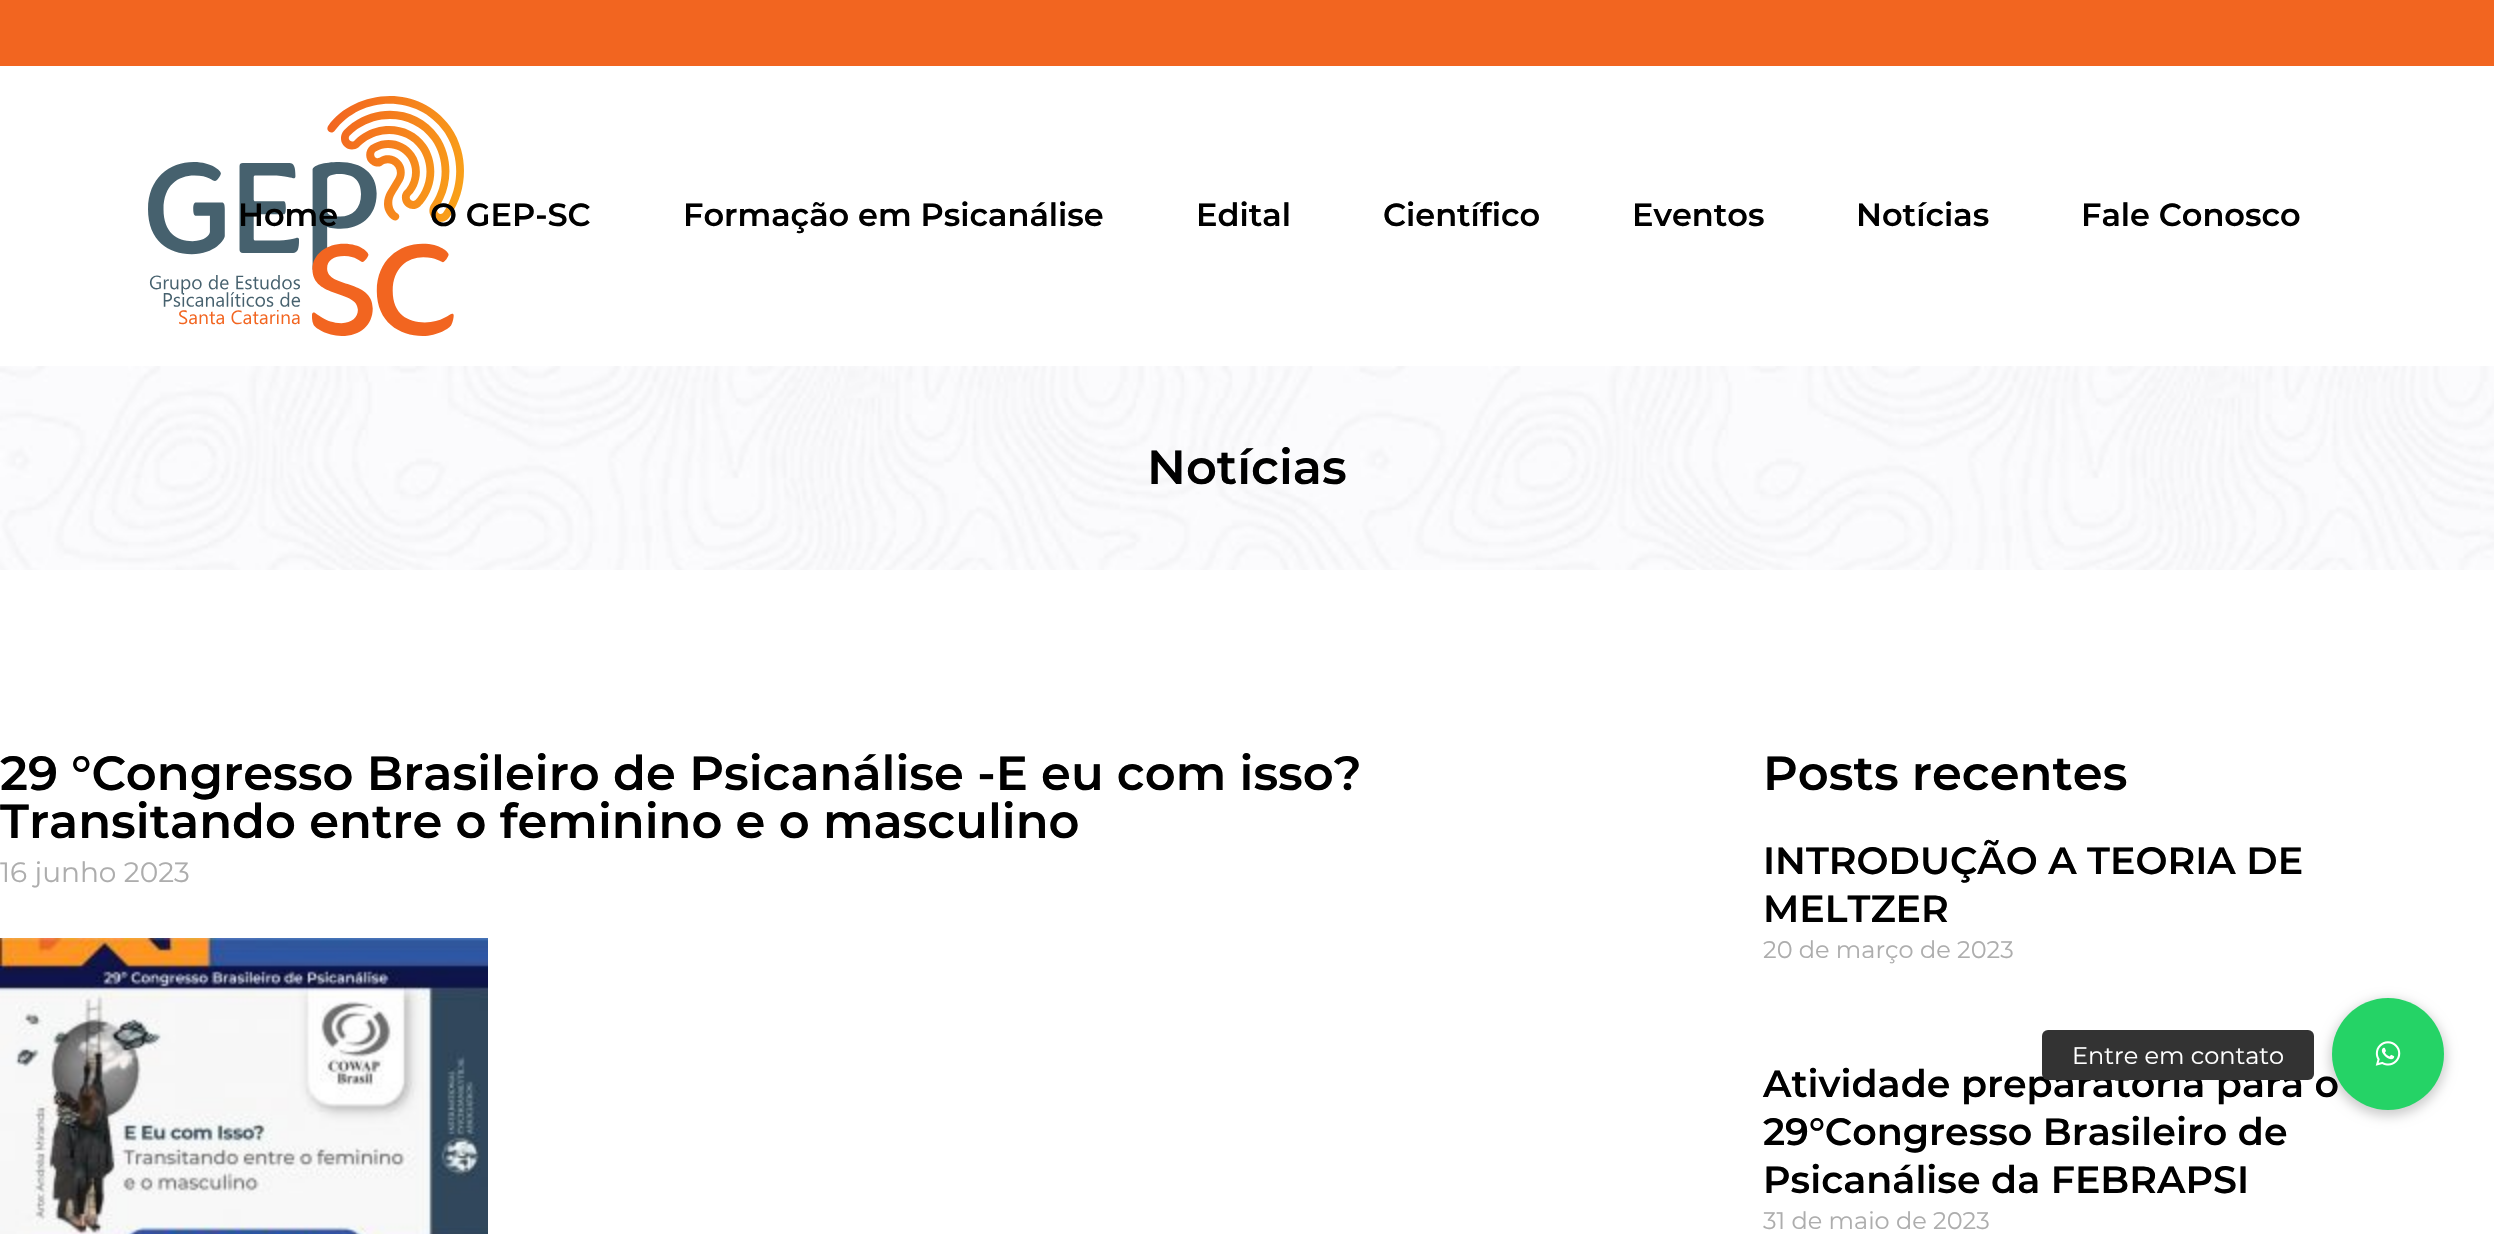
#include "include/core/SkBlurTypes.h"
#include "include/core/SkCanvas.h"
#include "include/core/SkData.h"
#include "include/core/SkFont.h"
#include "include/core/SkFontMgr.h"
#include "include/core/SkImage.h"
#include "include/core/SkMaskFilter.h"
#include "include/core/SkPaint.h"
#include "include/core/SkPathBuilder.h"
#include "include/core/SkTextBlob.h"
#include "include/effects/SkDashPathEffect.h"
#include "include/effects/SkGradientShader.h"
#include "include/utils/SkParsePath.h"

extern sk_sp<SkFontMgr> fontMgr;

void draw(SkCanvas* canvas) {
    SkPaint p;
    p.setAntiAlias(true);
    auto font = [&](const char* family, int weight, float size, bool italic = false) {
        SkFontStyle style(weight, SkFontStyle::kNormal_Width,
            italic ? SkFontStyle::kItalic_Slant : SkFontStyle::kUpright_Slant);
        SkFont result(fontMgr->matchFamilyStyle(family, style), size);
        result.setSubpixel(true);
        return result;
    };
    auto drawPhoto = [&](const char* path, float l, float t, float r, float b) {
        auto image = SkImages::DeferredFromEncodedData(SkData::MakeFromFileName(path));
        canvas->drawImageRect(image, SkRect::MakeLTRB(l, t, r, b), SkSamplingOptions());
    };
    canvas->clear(0xFFFFFFFF);
    p.setColor(0xFFF26520);
    canvas->drawRect(SkRect::MakeLTRB(0, 0, 2494, 66), p);
    drawPhoto("media/1.png", 148, 96, 464, 336);
    auto font1 = font("Montserrat", 600, 32);
    p.setColor(0xFF000000);
    {
        const struct { const char* s; float x, y; } items[] = {
            {"Home", 238, 226},
            {"O GEP-SC", 430, 226},
            {"Formação em Psicanálise", 683, 226},
            {"Edital", 1196, 226},
            {"Científico", 1383, 226},
            {"Eventos", 1632, 226},
            {"Notícias", 1856, 226},
            {"Fale Conosco", 2081, 226},
        };
        for (auto [s, x, y] : items) {
            canvas->drawString(s, x, y, font1, p);
        }
    }
    drawPhoto("media/2.png", 0, 366, 2494, 570);
    auto font2 = font("Montserrat", 600, 48);
    {
        const struct { const char* s; float x, y; } items[] = {
            {"Notícias", 1147, 484},
            {"29 °Congresso Brasileiro de Psicanálise -E eu com isso?", 0, 790},
            {"Transitando entre o feminino e o masculino", 0, 838},
        };
        for (auto [s, x, y] : items) {
            canvas->drawString(s, x, y, font2, p);
        }
    }
    auto font3 = font("Montserrat", 400, 28);
    p.setColor(0xFFADADAD);
    canvas->drawString("16 junho 2023", 0, 882, font3, p);
    drawPhoto("media/3.png", 0, 938, 488, 1234);
    p.setColor(0xFF000000);
    canvas->drawString("Posts recentes", 1763, 790, font2, p);
    auto font4 = font("Montserrat", 600, 38);
    canvas->drawString("INTRODUÇÃO A TEORIA DE", 1763, 874, font4, p);
    canvas->drawString("MELTZER", 1763, 922, font4, p);
    auto font5 = font("Montserrat", 400, 24);
    p.setColor(0xFFADADAD);
    canvas->drawString("20 de março de 2023", 1763, 958, font5, p);
    p.setColor(0xFF000000);
    {
        const struct { const char* s; float x, y; } items[] = {
            {"Atividade preparatória para o", 1763, 1097},
            {"29°Congresso Brasileiro de", 1763, 1145},
            {"Psicanálise da FEBRAPSI", 1763, 1193},
        };
        for (auto [s, x, y] : items) {
            canvas->drawString(s, x, y, font4, p);
        }
    }
    p.setColor(0xFFADADAD);
    canvas->drawString("31 de maio de 2023", 1763, 1229, font5, p);
    p.setColor(0x33000000);
    p.setMaskFilter(SkMaskFilter::MakeBlur(kNormal_SkBlurStyle, 6));
    canvas->drawRoundRect(SkRect::MakeLTRB(2330, 1000, 2446, 1116), 58, 58, p);
    p.setMaskFilter(nullptr);
    p.setColor(0xFF25D366);
    canvas->drawCircle(2388, 1054, 56, p);
    p.setColor(0xFF333333);
    canvas->drawRoundRect(SkRect::MakeLTRB(2042, 1030, 2314, 1080), 6, 6, p);
    p.setColor(0xFFFFFFFF);
    canvas->drawString("Entre em contato", 2072, 1064, font5, p);
    drawPhoto("media/4.png", 2375, 1041, 2401, 1066);
}
